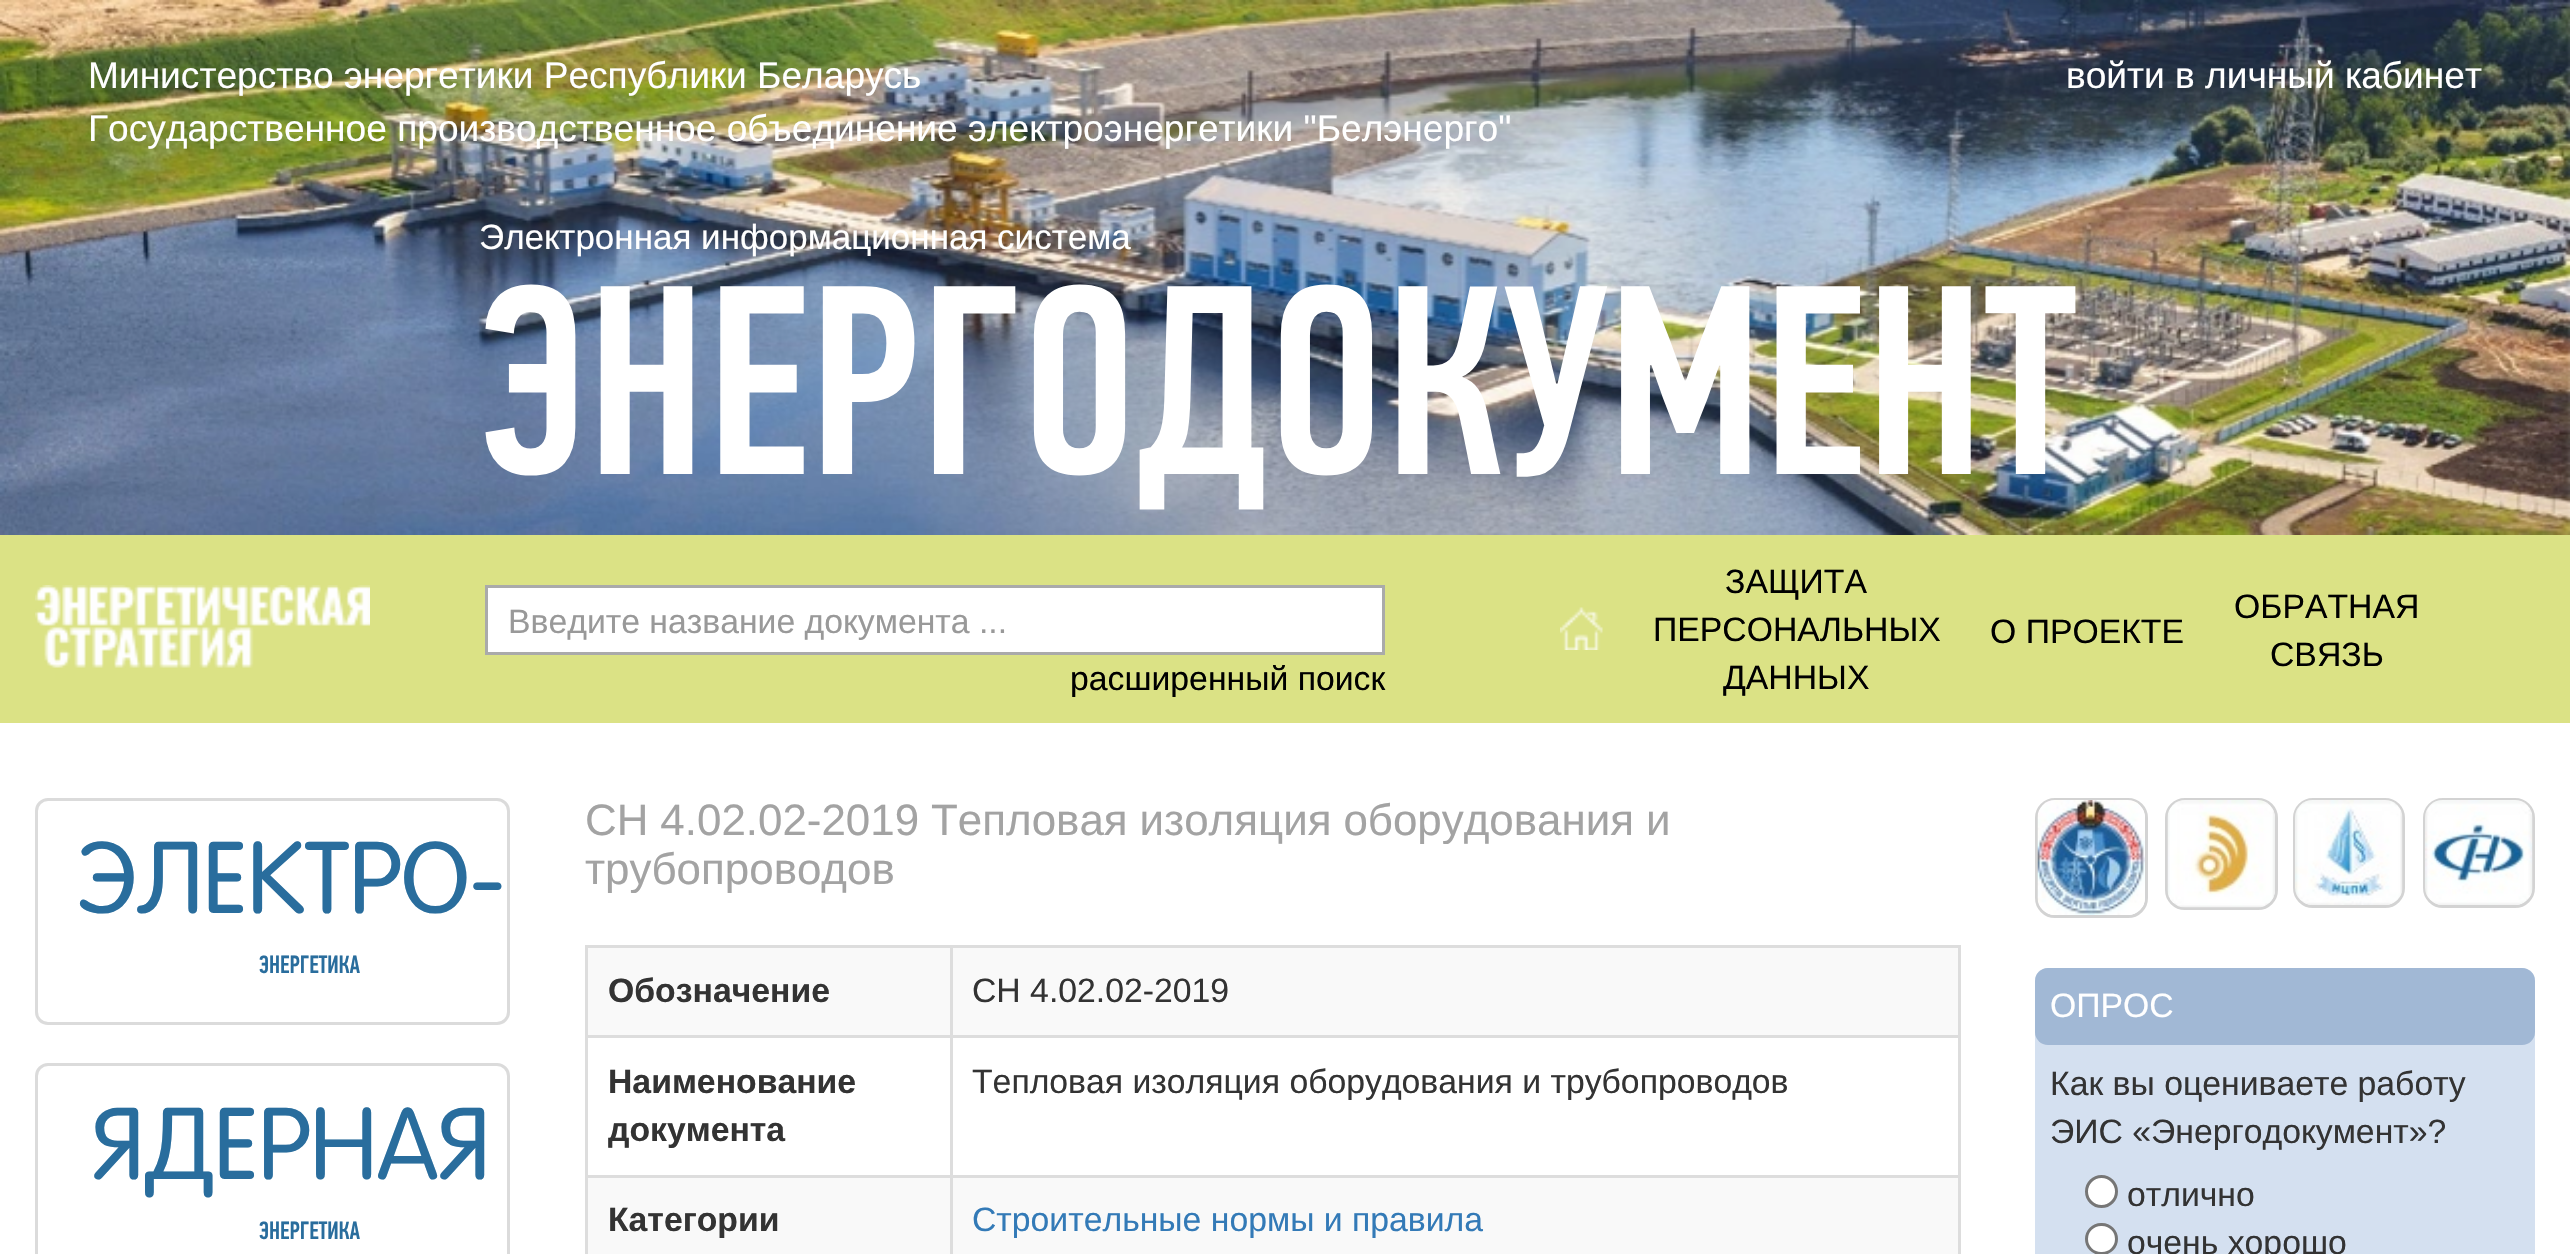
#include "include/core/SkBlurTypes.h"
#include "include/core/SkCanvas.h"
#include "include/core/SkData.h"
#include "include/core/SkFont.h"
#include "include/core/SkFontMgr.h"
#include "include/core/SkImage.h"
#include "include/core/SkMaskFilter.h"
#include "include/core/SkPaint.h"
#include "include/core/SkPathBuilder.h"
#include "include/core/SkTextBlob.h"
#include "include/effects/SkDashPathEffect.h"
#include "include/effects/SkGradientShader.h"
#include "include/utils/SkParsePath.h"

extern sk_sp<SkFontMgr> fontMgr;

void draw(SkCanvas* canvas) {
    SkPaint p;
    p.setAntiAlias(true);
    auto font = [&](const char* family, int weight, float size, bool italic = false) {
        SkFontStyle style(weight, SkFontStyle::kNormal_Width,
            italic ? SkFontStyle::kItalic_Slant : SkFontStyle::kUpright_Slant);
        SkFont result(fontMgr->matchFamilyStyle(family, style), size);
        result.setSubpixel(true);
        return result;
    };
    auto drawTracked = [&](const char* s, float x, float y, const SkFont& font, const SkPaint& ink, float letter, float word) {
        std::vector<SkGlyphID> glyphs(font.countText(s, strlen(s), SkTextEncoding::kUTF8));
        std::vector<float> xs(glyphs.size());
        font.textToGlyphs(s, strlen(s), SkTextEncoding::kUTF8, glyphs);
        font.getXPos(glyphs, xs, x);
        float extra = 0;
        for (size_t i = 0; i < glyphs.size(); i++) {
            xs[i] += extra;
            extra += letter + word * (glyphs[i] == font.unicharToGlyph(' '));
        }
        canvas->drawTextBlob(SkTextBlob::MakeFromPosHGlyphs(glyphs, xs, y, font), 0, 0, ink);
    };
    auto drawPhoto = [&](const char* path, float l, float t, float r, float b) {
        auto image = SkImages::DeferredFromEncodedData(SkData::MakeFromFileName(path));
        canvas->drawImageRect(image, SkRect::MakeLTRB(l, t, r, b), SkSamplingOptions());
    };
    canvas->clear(0xFFFFFFFF);
    drawPhoto("media/1.png", 0, 0, 2570, 535);
    auto font1 = font("Liberation Sans", 400, 37.1f);
    p.setColor(0xFFFFFFFF);
    {
        const struct { const char* s; float x, y; } items[] = {
            {"Министерство энергетики Республики Беларусь", 88, 88},
            {"Государственное производственное объединение электроэнергетики \"Белэнерго\"", 88, 141},
            {"войти в личный кабинет", 2066, 88},
        };
        for (auto [s, x, y] : items) {
            canvas->drawString(s, x, y, font1, p);
        }
    }
    auto font2 = font("Liberation Sans", 400, 35);
    canvas->drawString("Электронная информационная система", 479, 249, font2, p);
    auto font3 = font("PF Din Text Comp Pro", 500, 270);
    canvas->drawString("ЭНЕРГОДОКУМЕНТ", 479, 474, font3, p);
    p.setColor(0xFFDBE285);
    canvas->drawRect(SkRect::MakeLTRB(0, 535, 2570, 723), p);
    drawPhoto("media/2.png", 35, 585, 370, 668);
    p.setColor(0xFFFFFFFF);
    canvas->drawRect(SkRect::MakeLTRB(486.5f, 586.5f, 1383.5f, 653.5f), p);
    p.setStyle(SkPaint::kStroke_Style);
    p.setStrokeWidth(3);
    p.setColor(0xFFAAAAAA);
    canvas->drawRect(SkRect::MakeLTRB(486.5f, 586.5f, 1383.5f, 653.5f), p);
    auto font4 = font("Liberation Sans", 400, 33.75f);
    p.setStyle(SkPaint::kFill_Style);
    p.setColor(0xFF999999);
    canvas->drawString("Введите название документа ...", 508, 633, font4, p);
    p.setColor(0xFF000000);
    canvas->drawString("расширенный поиск", 1070, 690, font4, p);
    drawPhoto("media/3.png", 1560, 607, 1603, 650);
    {
        const struct { const char* s; float x, y; } items[] = {
            {"ЗАЩИТА", 1725, 593},
            {"ПЕРСОНАЛЬНЫХ", 1653, 641},
            {"ДАННЫХ", 1723, 689},
            {"О ПРОЕКТЕ", 1990, 643},
            {"ОБРАТНАЯ", 2234, 618},
            {"СВЯЗЬ", 2270, 666},
        };
        for (auto [s, x, y] : items) {
            canvas->drawString(s, x, y, font4, p);
        }
    }
    p.setStyle(SkPaint::kStroke_Style);
    p.setColor(0xFFDBDBDB);
    canvas->drawRoundRect(SkRect::MakeLTRB(36.5f, 799.5f, 508.5f, 1023.5f), 11.5f, 11.5f, p);
    auto font5 = font("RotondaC", 400, 100);
    p.setStyle(SkPaint::kFill_Style);
    p.setColor(0xFF296D9D);
    canvas->drawString("ЭЛЕКТРО-", 77, 913, font5, p);
    auto font6 = font("PF Din Text Comp Pro", 500, 25);
    canvas->drawString("ЭНЕРГЕТИКА", 259, 973, font6, p);
    p.setStyle(SkPaint::kStroke_Style);
    p.setColor(0xFFDBDBDB);
    canvas->drawRoundRect(SkRect::MakeLTRB(36.5f, 1064.5f, 508.5f, 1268.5f), 11.5f, 11.5f, p);
    p.setStyle(SkPaint::kFill_Style);
    p.setColor(0xFF296D9D);
    canvas->drawString("ЯДЕРНАЯ", 92, 1179, font5, p);
    canvas->drawString("ЭНЕРГЕТИКА", 259, 1239, font6, p);
    auto font7 = font("Liberation Sans", 400, 43.9f);
    p.setColor(0xFFA3A3A3);
    drawTracked("СН 4.02.02-2019 Тепловая изоляция оборудования и", 585, 835, font7, p, 0, -0.25f);
    canvas->drawString("трубопроводов", 585, 884, font7, p);
    {
        const struct { float l, t, r, b; SkColor color; } items[] = {
            {585, 945, 1960, 948, 0xFFDDDDDD},
            {1958, 945, 1961, 1254, 0xFFDDDDDD},
            {585, 945, 588, 1254, 0xFFDDDDDD},
            {588, 948, 1958, 1035, 0xFFF9F9F9},
        };
        for (auto [l, t, r, b, color] : items) {
            p.setColor(color);
            canvas->drawRect(SkRect::MakeLTRB(l, t, r, b), p);
        }
    }
    auto font8 = font("Liberation Sans", 700, 33.75f);
    p.setColor(0xFF333333);
    canvas->drawString("Обозначение", 608, 1002, font8, p);
    {
        const struct { float l, t, r, b; SkColor color; } items[] = {
            {950, 1035, 1960, 1038, 0xFFDDDDDD},
            {950, 1175, 1960, 1178, 0xFFDDDDDD},
            {588, 1178, 1958, 1254, 0xFFF9F9F9},
            {950, 1175, 953, 1254, 0xFFDDDDDD},
            {585, 1175, 953, 1178, 0xFFDDDDDD},
            {950, 1035, 953, 1178, 0xFFDDDDDD},
            {585, 1035, 953, 1038, 0xFFDDDDDD},
            {950, 945, 953, 1038, 0xFFDDDDDD},
        };
        for (auto [l, t, r, b, color] : items) {
            p.setColor(color);
            canvas->drawRect(SkRect::MakeLTRB(l, t, r, b), p);
        }
    }
    p.setColor(0xFF333333);
    canvas->drawString("СН 4.02.02-2019", 972, 1002, font4, p);
    canvas->drawString("Наименование", 608, 1093, font8, p);
    canvas->drawString("документа", 608, 1141, font8, p);
    canvas->drawString("Тепловая изоляция оборудования и трубопроводов", 972, 1093, font4, p);
    canvas->drawString("Категории", 608, 1231, font8, p);
    p.setColor(0xFF337AB7);
    canvas->drawString("Строительные нормы и правила", 972, 1231, font4, p);
    p.setStyle(SkPaint::kStroke_Style);
    p.setColor(0xFFD3D3D3);
    canvas->drawRoundRect(SkRect::MakeLTRB(2036.5f, 799.5f, 2146.5f, 916.5f), 18.5f, 18.5f, p);
    drawPhoto("media/4.png", 2037, 800, 2145, 915);
    canvas->drawRoundRect(SkRect::MakeLTRB(2166.5f, 799.5f, 2276.5f, 908.5f), 18.5f, 18.5f, p);
    drawPhoto("media/5.png", 2167, 800, 2275, 908);
    canvas->drawRoundRect(SkRect::MakeLTRB(2294.5f, 799.5f, 2403.5f, 906.5f), 18.5f, 18.5f, p);
    drawPhoto("media/6.png", 2295, 800, 2403, 905);
    canvas->drawRoundRect(SkRect::MakeLTRB(2424.5f, 799.5f, 2533.5f, 906.5f), 18.5f, 18.5f, p);
    drawPhoto("media/7.png", 2425, 800, 2533, 905);
    p.setStyle(SkPaint::kFill_Style);
    p.setColor(0xFFD4E0F0);
    canvas->drawRoundRect(SkRect::MakeLTRB(2035, 968, 2535, 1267), 13, 13, p);
    p.setColor(0xFFA1B8D5);
    canvas->drawRoundRect(SkRect::MakeLTRB(2035, 968, 2535, 1045), 13, 13, p);
    p.setColor(0xFFFFFFFF);
    canvas->drawString("ОПРОС", 2050, 1017, font4, p);
    p.setColor(0xFF333333);
    canvas->drawString("Как вы оцениваете работу", 2050, 1095, font4, p);
    canvas->drawString("ЭИС «Энергодокумент»?", 2050, 1143, font4, p);
    p.setColor(0xFFFFFFFF);
    canvas->drawCircle(2101.5f, 1191.5f, 15, p);
    p.setStyle(SkPaint::kStroke_Style);
    p.setColor(0xFF767676);
    canvas->drawCircle(2101.5f, 1191.5f, 15, p);
    p.setStyle(SkPaint::kFill_Style);
    p.setColor(0xFF333333);
    canvas->drawString("отлично", 2127, 1206, font4, p);
    p.setColor(0xFFFFFFFF);
    canvas->drawRoundRect(SkRect::MakeLTRB(2086.5f, 1224.5f, 2116.5f, 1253.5f), 14.5f, 14.5f, p);
    p.setStyle(SkPaint::kStroke_Style);
    p.setColor(0xFF767676);
    canvas->drawRoundRect(SkRect::MakeLTRB(2086.5f, 1224.5f, 2116.5f, 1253.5f), 14.5f, 14.5f, p);
    p.setStyle(SkPaint::kFill_Style);
    p.setColor(0xFF333333);
    canvas->drawString("очень хорошо", 2127, 1254, font4, p);
}
